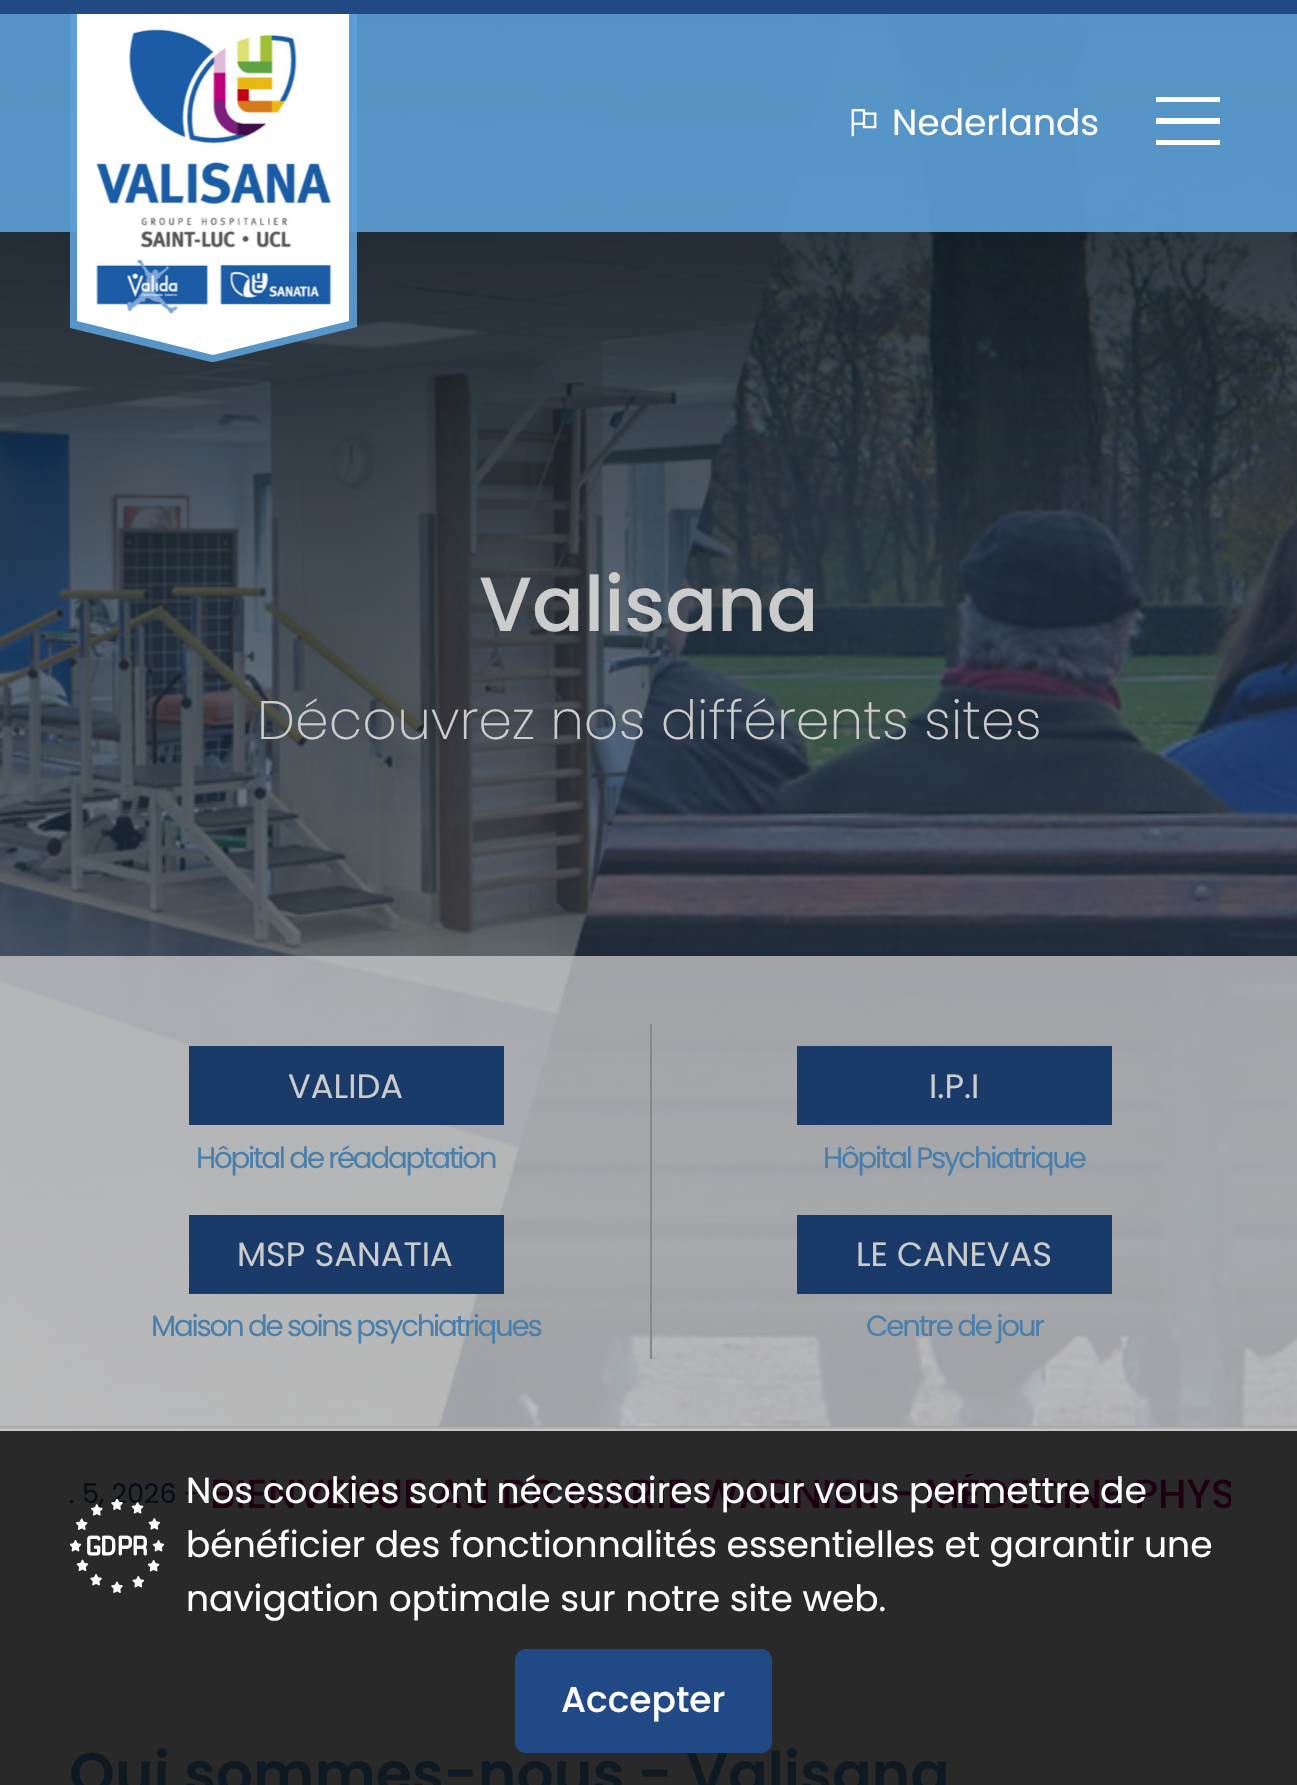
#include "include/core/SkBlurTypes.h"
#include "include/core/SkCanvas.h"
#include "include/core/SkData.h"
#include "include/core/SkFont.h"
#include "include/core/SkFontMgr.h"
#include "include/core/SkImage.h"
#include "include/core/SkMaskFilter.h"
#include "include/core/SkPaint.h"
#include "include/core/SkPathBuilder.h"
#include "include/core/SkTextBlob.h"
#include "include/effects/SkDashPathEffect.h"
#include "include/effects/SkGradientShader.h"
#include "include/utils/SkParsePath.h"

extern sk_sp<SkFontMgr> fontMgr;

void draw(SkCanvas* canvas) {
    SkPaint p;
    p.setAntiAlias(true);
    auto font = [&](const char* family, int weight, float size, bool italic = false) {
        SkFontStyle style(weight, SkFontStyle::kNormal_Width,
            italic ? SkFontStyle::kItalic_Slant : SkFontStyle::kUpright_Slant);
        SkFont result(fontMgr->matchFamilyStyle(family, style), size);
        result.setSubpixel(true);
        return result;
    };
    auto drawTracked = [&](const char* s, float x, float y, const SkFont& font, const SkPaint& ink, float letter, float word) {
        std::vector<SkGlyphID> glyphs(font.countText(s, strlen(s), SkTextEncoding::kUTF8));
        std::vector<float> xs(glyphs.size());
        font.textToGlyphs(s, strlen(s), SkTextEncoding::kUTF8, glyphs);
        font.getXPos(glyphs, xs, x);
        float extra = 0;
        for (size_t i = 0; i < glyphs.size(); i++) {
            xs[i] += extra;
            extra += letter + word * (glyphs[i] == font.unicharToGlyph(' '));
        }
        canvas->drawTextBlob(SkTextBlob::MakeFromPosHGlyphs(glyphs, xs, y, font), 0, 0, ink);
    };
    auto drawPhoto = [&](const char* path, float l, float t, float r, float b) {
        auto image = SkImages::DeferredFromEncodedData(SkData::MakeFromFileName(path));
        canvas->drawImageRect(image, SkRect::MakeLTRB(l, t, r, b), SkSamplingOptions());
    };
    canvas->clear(0xFF292929);
    p.setColor(0xFF000000);
    canvas->drawRect(SkRect::MakeLTRB(0, 1426, 1297, 1427), p);
    drawPhoto("media/3.png", 0, 14, 1297, 1427);
    {
        const SkColor colors[] = {0x5C425A7D, 0xE6020C12};
        const float stops[] = {0, 1};
        const SkPoint ends[] = {{649, 1427}, {649, 0}};
        p.setShader(SkGradientShader::MakeLinear(ends, colors, stops, 2, SkTileMode::kClamp));
        p.setAlpha(255);
    }
    canvas->drawRect(SkRect::MakeLTRB(0, 14, 1297, 1427), p);
    p.setShader(nullptr);
    p.setColor(0xE65C9FD6);
    canvas->drawRect(SkRect::MakeLTRB(0, 14, 1297, 232), p);
    p.setColor(0xFF214984);
    canvas->drawRect(SkRect::MakeLTRB(0, 0, 1297, 14), p);
    p.setColor(0xE65C9FD6);
    canvas->drawPath(SkPathBuilder().moveTo(70, 14).lineTo(357, 14).lineTo(357, 327).lineTo(214, 362).lineTo(211, 362).lineTo(70, 328).close().detach(), p);
    p.setColor(0xFFFFFFFF);
    canvas->drawPath(SkPathBuilder().moveTo(77, 14).lineTo(349, 14).lineTo(349, 321).lineTo(213, 355).lineTo(77, 321).close().detach(), p);
    drawPhoto("media/1.png", 96, 29, 332, 314);
    drawPhoto("media/2.png", 851, 109, 877, 137);
    auto font1 = font("Poppins", 400, 36);
    canvas->drawString("Nederlands", 892, 135, font1, p);
    canvas->drawPath(SkPathBuilder().moveTo(1156, 97).lineTo(1156, 102).lineTo(1220, 102).lineTo(1220, 97).close().moveTo(1156, 118).lineTo(1156, 124).lineTo(1220, 124).lineTo(1220, 118).close().moveTo(1156, 140).lineTo(1156, 145).lineTo(1220, 145).lineTo(1220, 140).close().detach(), p);
    p.setColor(0xFFB1B1B1);
    canvas->drawRect(SkRect::MakeLTRB(0, 1427, 1297, 1429), p);
    auto font2 = font("Poppins", 500, 76.5f);
    p.setColor(0xFFCCCCCC);
    canvas->drawString("Valisana", 479, 631, font2, p);
    auto font3 = font("Poppins", 200, 54);
    canvas->drawString("Découvrez nos différents sites", 257, 739, font3, p);
    p.setColor(0xBFCCCCCC);
    canvas->drawRect(SkRect::MakeLTRB(0, 956, 1297, 1427), p);
    p.setColor(0xFF1A3A6A);
    canvas->drawRect(SkRect::MakeLTRB(189, 1046, 504, 1125), p);
    auto font4 = font("Poppins", 400, 33.75f);
    p.setColor(0xFFCCCCCC);
    canvas->drawString("VALIDA", 288, 1098, font4, p);
    auto font5 = font("Poppins", 400, 29.25f);
    p.setColor(0xFF4A7FAB);
    drawTracked("Hôpital de réadaptation", 196, 1168, font5, p, -2.25f, 0);
    p.setColor(0xFF888888);
    canvas->drawRect(SkRect::MakeLTRB(650, 1024, 652, 1359), p);
    p.setColor(0xFF1A3A6A);
    canvas->drawRect(SkRect::MakeLTRB(797, 1046, 1112, 1125), p);
    p.setColor(0xFFCCCCCC);
    canvas->drawString("I.P.I", 929, 1098, font4, p);
    p.setColor(0xFF4A7FAB);
    drawTracked("Hôpital Psychiatrique", 823, 1168, font5, p, -2.25f, 0);
    p.setColor(0xFF1A3A6A);
    canvas->drawRect(SkRect::MakeLTRB(189, 1215, 504, 1294), p);
    p.setColor(0xFFCCCCCC);
    canvas->drawString("MSP SANATIA", 237, 1266, font4, p);
    p.setColor(0xFF4A7FAB);
    drawTracked("Maison de soins psychiatriques", 151, 1336, font5, p, -2.25f, 0);
    p.setColor(0xFF1A3A6A);
    canvas->drawRect(SkRect::MakeLTRB(797, 1215, 1112, 1294), p);
    p.setColor(0xFFCCCCCC);
    canvas->drawString("LE CANEVAS", 856, 1266, font4, p);
    p.setColor(0xFF4A7FAB);
    drawTracked("Centre de jour", 866, 1336, font5, p, -2.25f, 0);
    p.setColor(0xFFC6C6C6);
    canvas->drawRect(SkRect::MakeLTRB(0, 1429, 1297, 1431), p);
    auto font6 = font("Poppins", 400, 27);
    p.setColor(0xFF050C15);
    canvas->drawString(". 5, 2026 -", 69, 1503, font6, p);
    canvas->save();
    canvas->clipRect(SkRect::MakeLTRB(70, 1474, 1231, 1514));
    auto font7 = font("Poppins", 500, 40.5f);
    p.setColor(0xFF1F0012);
    canvas->drawString("BIENVENUE AU DR MARIE WARNIER - MÉDECINE PHYS", 210, 1508, font7, p);
    canvas->restore();
    auto font8 = font("Poppins", 600, 58.5f);
    p.setColor(0xFF0F1922);
    canvas->drawString("Qui sommes-nous - Valisana", 69, 1794, font8, p);
    drawPhoto("media/4.png", 70, 1499, 164, 1593);
    p.setColor(0xFFFFFFFF);
    {
        const struct { const char* s; float x, y; } items[] = {
            {"Nos cookies sont nécessaires pour vous permettre de", 186, 1503},
            {"bénéficier des fonctionnalités essentielles et garantir une", 186, 1557},
            {"navigation optimale sur notre site web.", 186, 1611},
        };
        for (auto [s, x, y] : items) {
            canvas->drawString(s, x, y, font1, p);
        }
    }
    p.setColor(0xFF214986);
    canvas->drawRoundRect(SkRect::MakeLTRB(515, 1649, 772, 1753), 11, 11, p);
    auto font9 = font("Poppins", 500, 36);
    p.setColor(0xFFFFFFFF);
    canvas->drawString("Accepter", 561, 1712, font9, p);
}
